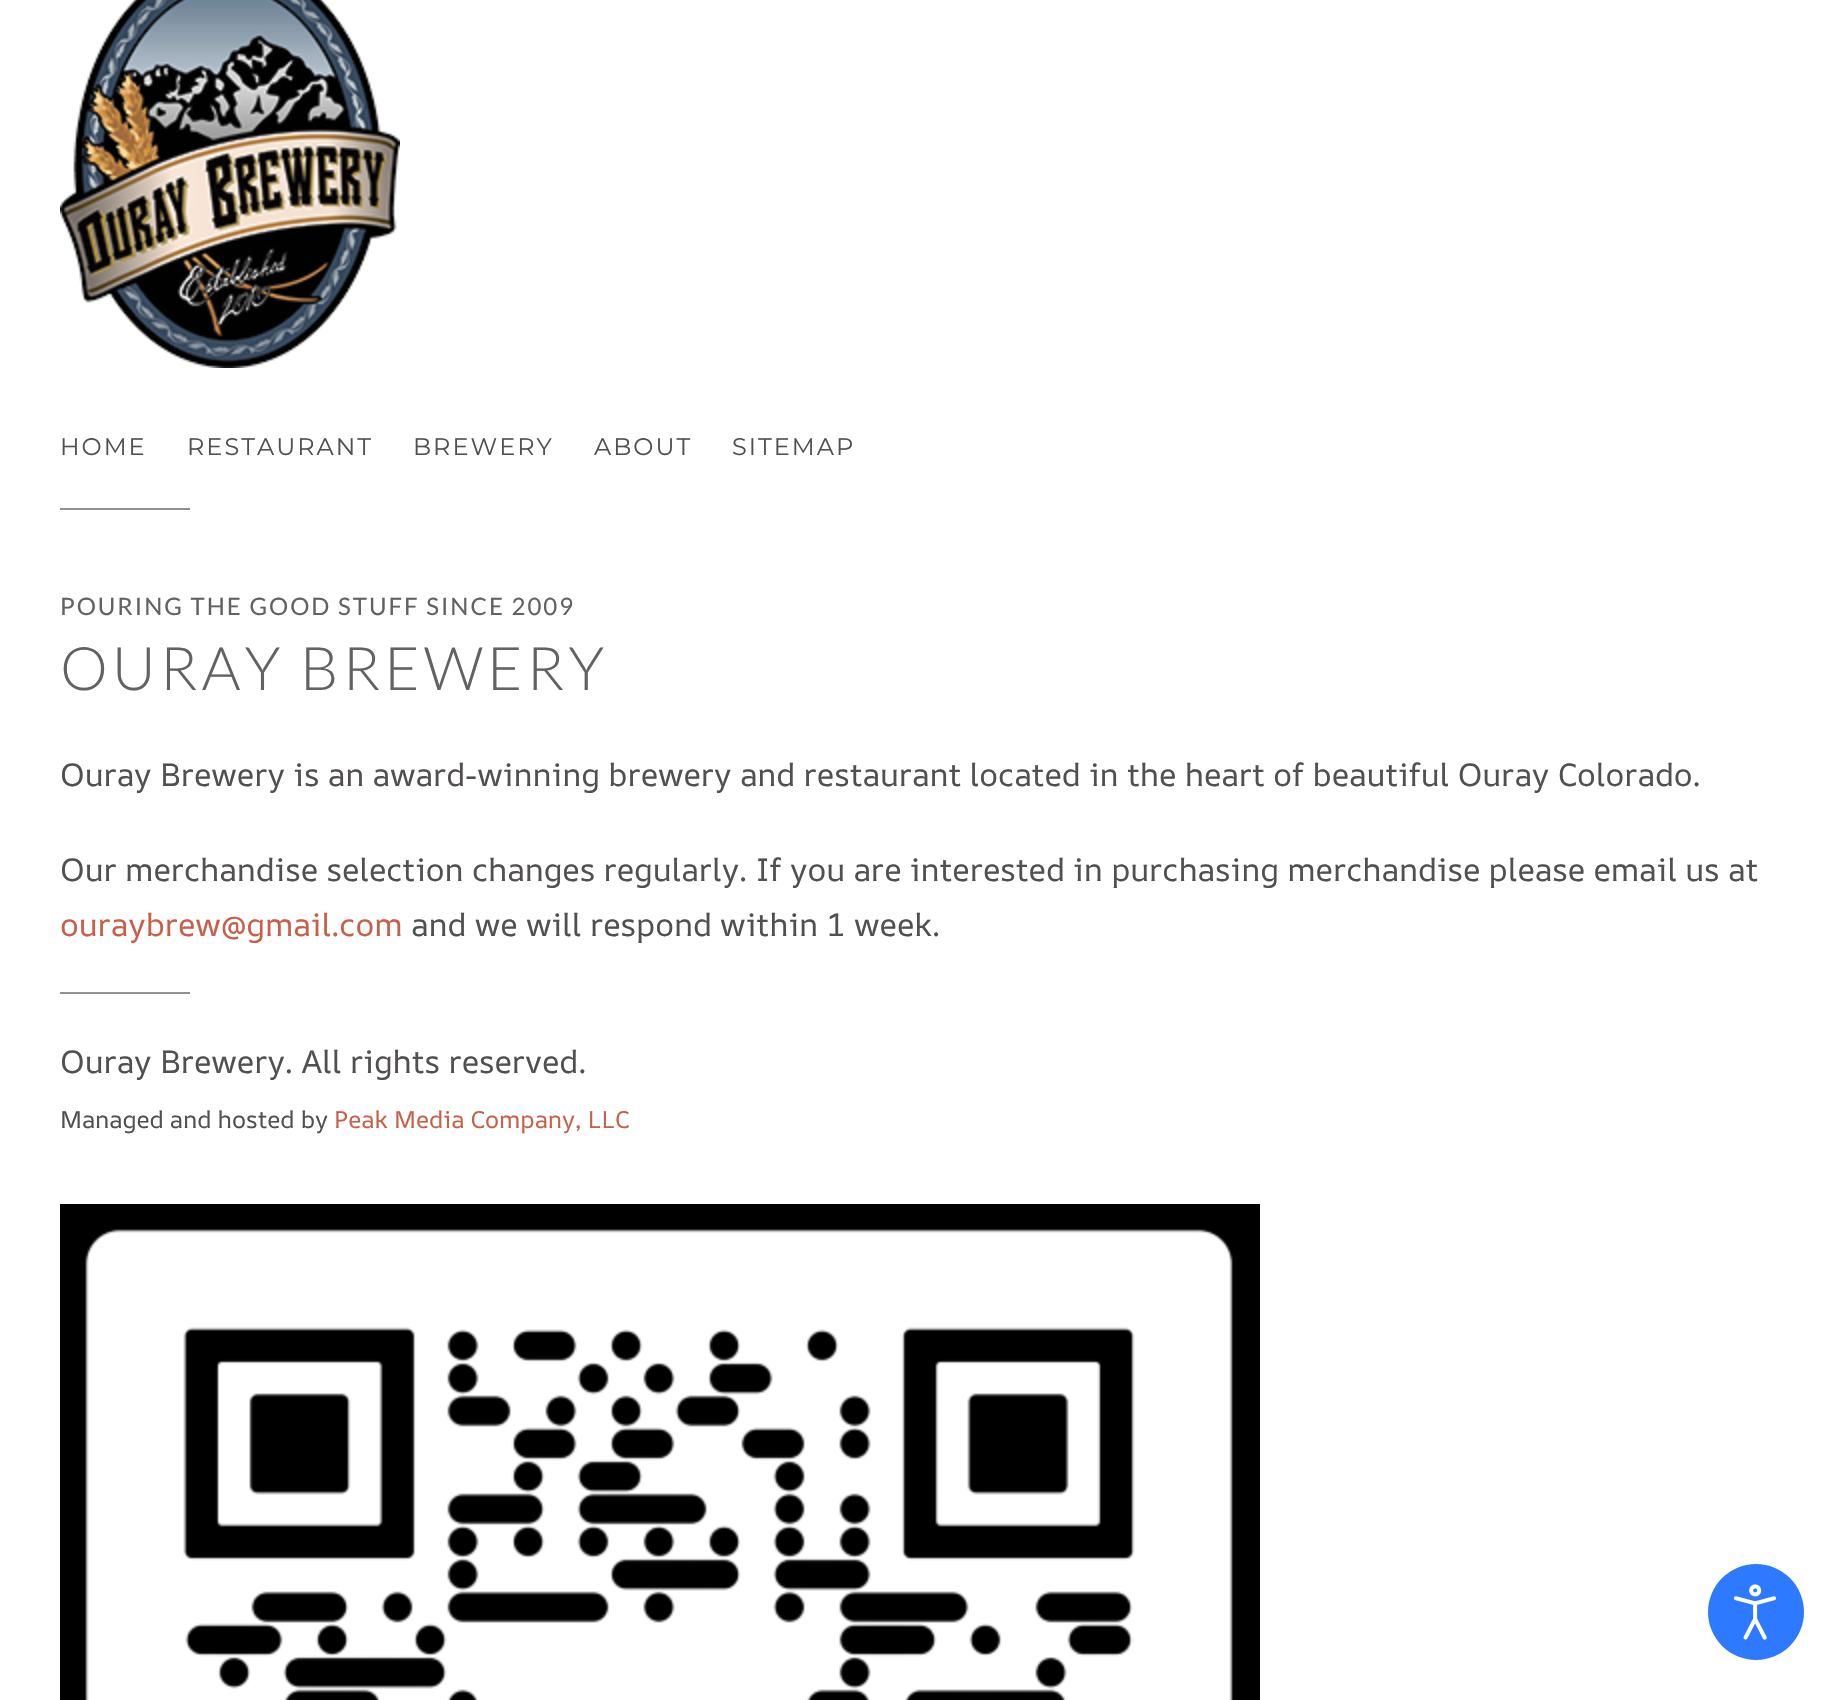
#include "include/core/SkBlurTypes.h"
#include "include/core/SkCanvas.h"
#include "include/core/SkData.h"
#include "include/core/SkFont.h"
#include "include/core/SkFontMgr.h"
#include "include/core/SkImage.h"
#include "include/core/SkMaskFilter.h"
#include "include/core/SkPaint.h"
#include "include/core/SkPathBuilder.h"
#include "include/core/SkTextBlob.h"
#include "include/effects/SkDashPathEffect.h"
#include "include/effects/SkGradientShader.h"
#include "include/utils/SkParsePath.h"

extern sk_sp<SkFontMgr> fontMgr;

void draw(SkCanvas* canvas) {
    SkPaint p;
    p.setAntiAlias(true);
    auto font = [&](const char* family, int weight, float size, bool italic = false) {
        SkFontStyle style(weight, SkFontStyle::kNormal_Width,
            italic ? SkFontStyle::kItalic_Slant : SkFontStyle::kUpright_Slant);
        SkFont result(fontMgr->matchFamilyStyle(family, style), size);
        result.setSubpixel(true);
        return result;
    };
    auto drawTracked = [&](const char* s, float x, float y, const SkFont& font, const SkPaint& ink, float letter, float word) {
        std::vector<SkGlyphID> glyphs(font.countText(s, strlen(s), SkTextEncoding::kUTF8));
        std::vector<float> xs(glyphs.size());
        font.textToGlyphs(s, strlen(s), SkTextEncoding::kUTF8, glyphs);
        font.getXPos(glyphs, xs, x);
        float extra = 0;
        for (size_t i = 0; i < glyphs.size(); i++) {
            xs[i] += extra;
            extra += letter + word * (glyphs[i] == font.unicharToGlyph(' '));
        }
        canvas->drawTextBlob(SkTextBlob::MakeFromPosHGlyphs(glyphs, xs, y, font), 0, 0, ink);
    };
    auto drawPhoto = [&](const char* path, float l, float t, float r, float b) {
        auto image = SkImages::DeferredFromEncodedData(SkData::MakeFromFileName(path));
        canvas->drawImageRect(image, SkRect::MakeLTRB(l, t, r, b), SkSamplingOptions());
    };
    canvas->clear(0xFFFFFFFF);
    drawPhoto("media/1.png", 60, 0, 400, 368);
    auto font1 = font("Montserrat", 100, 24);
    p.setColor(0xFF524F4F);
    {
        const struct { const char* s; float x, y; } items[] = {
            {"HOME", 60, 455},
            {"RESTAURANT", 187, 455},
            {"BREWERY", 413, 455},
            {"ABOUT", 594, 455},
            {"SITEMAP", 732, 455},
        };
        for (auto [s, x, y] : items) {
            drawTracked(s, x, y, font1, p, 2, 0);
        }
    }
    p.setColor(0xFF919191);
    canvas->drawRect(SkRect::MakeLTRB(60, 508, 190, 510), p);
    auto font2 = font("Lato", 400, 24);
    p.setColor(0xFF626262);
    drawTracked("POURING THE GOOD STUFF SINCE 2009", 60, 615, font2, p, 2, 0);
    auto font3 = font("Lato", 300, 60);
    drawTracked("OURAY BREWERY", 60, 690, font3, p, 4, 0);
    auto font4 = font("AR One Sans", 400, 32);
    p.setColor(0xFF524F4F);
    canvas->drawString("Ouray Brewery is an award-winning brewery and restaurant located in the heart of beautiful Ouray Colorado.", 60, 786, font4, p);
    canvas->drawString("Our merchandise selection changes regularly. If you are interested in purchasing merchandise please email us at", 60, 881, font4, p);
    p.setColor(0xFFC85F49);
    canvas->drawString("ouraybrew@gmail.com", 60, 936, font4, p);
    p.setColor(0xFF524F4F);
    canvas->drawString("and we will respond within 1 week.", 411, 936, font4, p);
    p.setColor(0xFF919191);
    canvas->drawRect(SkRect::MakeLTRB(60, 992, 190, 994), p);
    p.setColor(0xFF524F4F);
    canvas->drawString("Ouray Brewery. All rights reserved.", 60, 1073, font4, p);
    auto font5 = font("AR One Sans", 400, 24);
    canvas->drawString("Managed and hosted by", 60, 1128, font5, p);
    p.setColor(0xFFC85F49);
    canvas->drawString("Peak Media Company, LLC", 334, 1128, font5, p);
    drawPhoto("media/2.png", 60, 1204, 1260, 1700);
    p.setColor(0xFF2D79FF);
    canvas->drawCircle(1756, 1612, 48, p);
    drawPhoto("media/3.png", 1733, 1584, 1777, 1640);
}
